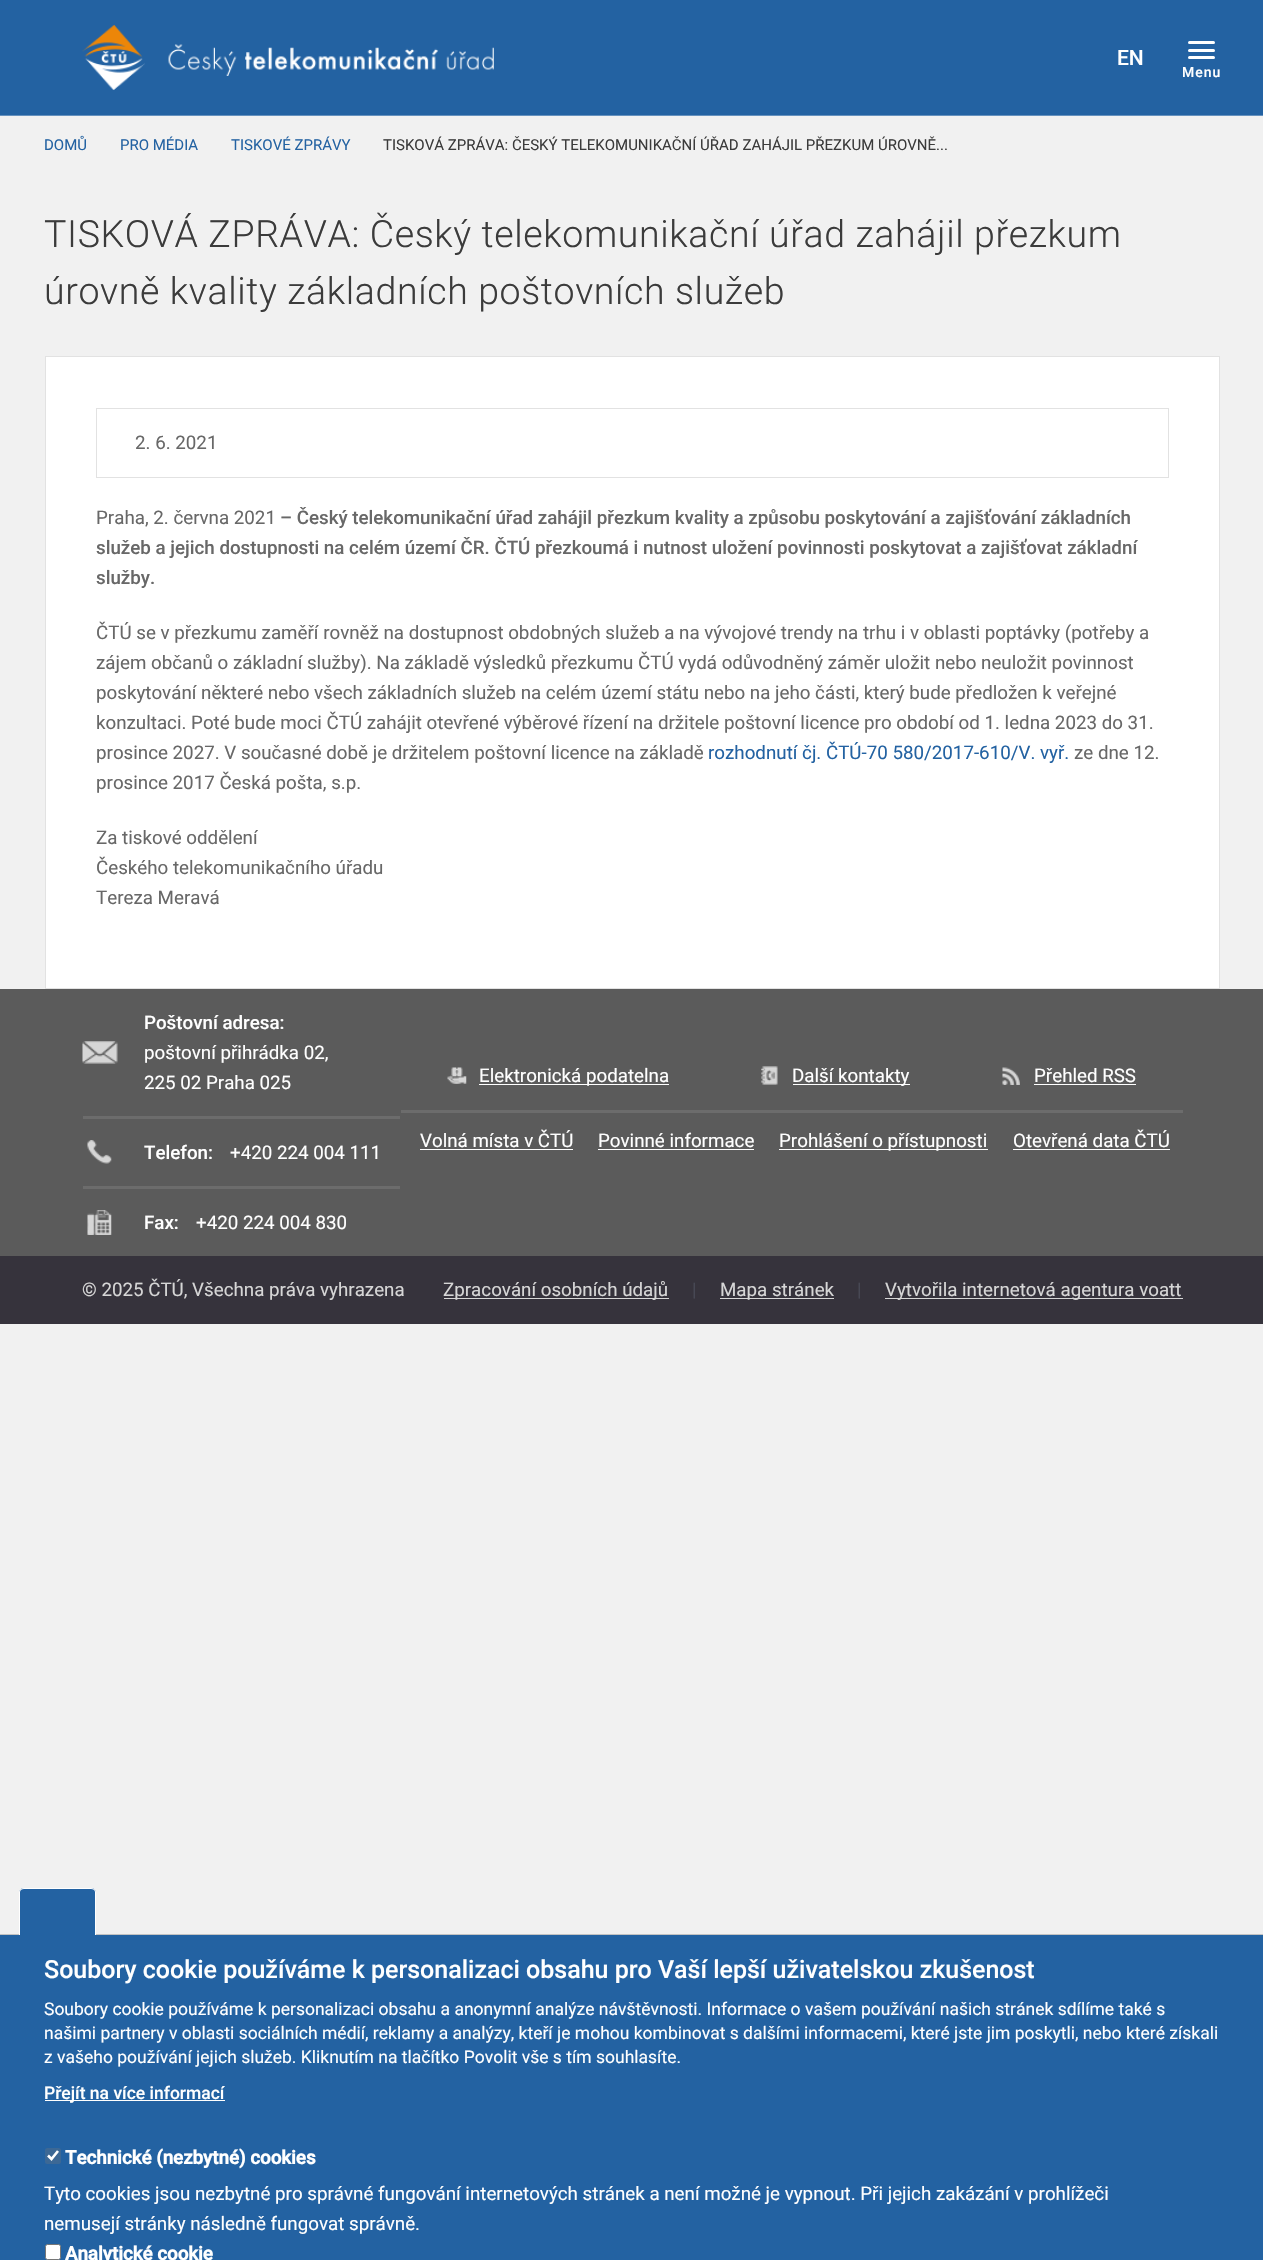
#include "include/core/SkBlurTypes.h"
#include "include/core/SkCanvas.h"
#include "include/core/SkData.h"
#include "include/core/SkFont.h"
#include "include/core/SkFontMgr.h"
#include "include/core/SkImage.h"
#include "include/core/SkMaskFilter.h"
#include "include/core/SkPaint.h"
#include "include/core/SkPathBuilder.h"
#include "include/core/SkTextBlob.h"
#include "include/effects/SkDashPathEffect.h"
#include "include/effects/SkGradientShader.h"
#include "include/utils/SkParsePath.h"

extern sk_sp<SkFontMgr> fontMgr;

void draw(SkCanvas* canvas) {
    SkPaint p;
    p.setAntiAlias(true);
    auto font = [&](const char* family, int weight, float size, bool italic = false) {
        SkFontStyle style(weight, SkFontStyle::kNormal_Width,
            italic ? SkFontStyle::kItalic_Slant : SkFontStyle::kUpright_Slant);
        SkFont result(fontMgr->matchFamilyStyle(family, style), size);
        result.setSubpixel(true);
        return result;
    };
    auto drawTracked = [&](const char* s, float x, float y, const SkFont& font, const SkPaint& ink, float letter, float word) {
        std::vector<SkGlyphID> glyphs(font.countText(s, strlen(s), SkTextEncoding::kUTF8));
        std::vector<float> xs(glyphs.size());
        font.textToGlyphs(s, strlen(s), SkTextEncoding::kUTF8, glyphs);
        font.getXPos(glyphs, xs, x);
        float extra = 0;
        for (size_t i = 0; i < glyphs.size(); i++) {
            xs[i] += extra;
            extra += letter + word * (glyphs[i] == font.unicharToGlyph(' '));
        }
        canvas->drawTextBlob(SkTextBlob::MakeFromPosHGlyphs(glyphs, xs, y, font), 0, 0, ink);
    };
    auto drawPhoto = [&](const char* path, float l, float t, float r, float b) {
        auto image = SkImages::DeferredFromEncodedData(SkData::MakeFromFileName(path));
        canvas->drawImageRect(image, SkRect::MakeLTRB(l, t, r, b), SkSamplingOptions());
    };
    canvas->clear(0xFFF1F1F1);
    p.setColor(0xFF2362A2);
    canvas->drawRect(SkRect::MakeLTRB(0, 0, 1263, 115), p);
    drawPhoto("media/1.png", 82, 25, 494, 90);
    auto font1 = font("Roboto", 500, 21);
    p.setColor(0xFFFFFFFF);
    canvas->drawString("EN", 1117, 65, font1, p);
    canvas->drawRoundRect(SkRect::MakeLTRB(1188, 41, 1215, 44), 1.5f, 1.5f, p);
    canvas->drawRoundRect(SkRect::MakeLTRB(1188, 49, 1215, 52), 1.5f, 1.5f, p);
    canvas->drawRoundRect(SkRect::MakeLTRB(1188, 56, 1215, 59), 1.5f, 1.5f, p);
    auto font2 = font("Roboto", 500, 14);
    drawTracked("Menu", 1182, 77, font2, p, 1, 0);
    p.setColor(0xFF6591BE);
    canvas->drawRect(SkRect::MakeLTRB(0, 115, 1263, 116), p);
    auto font3 = font("Roboto", 400, 15);
    p.setColor(0xFF2362A2);
    {
        const struct { const char* s; float x, y; } items[] = {
            {"DOMŮ", 44, 150},
            {"PRO MÉDIA", 120, 150},
            {"TISKOVÉ ZPRÁVY", 231, 150},
        };
        for (auto [s, x, y] : items) {
            canvas->drawString(s, x, y, font3, p);
        }
    }
    p.setColor(0xFF3B3B3B);
    canvas->drawString("TISKOVÁ ZPRÁVA: ČESKÝ TELEKOMUNIKAČNÍ ÚŘAD ZAHÁJIL PŘEZKUM ÚROVNĚ...", 383, 150, font3, p);
    auto font4 = font("Roboto", 300, 37.5f);
    drawTracked("TISKOVÁ ZPRÁVA: Český telekomunikační úřad zahájil přezkum", 44, 247, font4, p, 0.62f, 0);
    drawTracked("úrovně kvality základních poštovních služeb", 44, 304, font4, p, 0.62f, 0);
    p.setColor(0xFFFFFFFF);
    canvas->drawRect(SkRect::MakeLTRB(45.5f, 356.5f, 1219.5f, 988.5f), p);
    p.setStyle(SkPaint::kStroke_Style);
    p.setStrokeWidth(1);
    p.setColor(0xFFE2E2E2);
    canvas->drawRect(SkRect::MakeLTRB(45.5f, 356.5f, 1219.5f, 988.5f), p);
    canvas->drawRect(SkRect::MakeLTRB(96.5f, 408.5f, 1168.5f, 477.5f), p);
    auto font5 = font("Roboto", 400, 18.75f);
    p.setStyle(SkPaint::kFill_Style);
    p.setColor(0xFF686868);
    canvas->drawString("2. 6. 2021", 135, 449, font5, p);
    canvas->drawString("Praha, 2. června 2021", 96, 524, font5, p);
    auto font6 = font("Roboto", 500, 18.75f);
    {
        const struct { const char* s; float x, y; } items[] = {
            {"– Český telekomunikační úřad zahájil přezkum kvality a způsobu poskytování a zajišťování základních", 280, 524},
            {"služeb a jejich dostupnosti na celém území ČR. ČTÚ přezkoumá i nutnost uložení povinnosti poskytovat a zajišťovat základní", 96, 554},
            {"služby.", 96, 584},
        };
        for (auto [s, x, y] : items) {
            canvas->drawString(s, x, y, font6, p);
        }
    }
    {
        const struct { const char* s; float x, y; } items[] = {
            {"ČTÚ se v přezkumu zaměří rovněž na dostupnost obdobných služeb a na vývojové trendy na trhu i v oblasti poptávky (potřeby a", 96, 639},
            {"zájem občanů o základní služby). Na základě výsledků přezkumu ČTÚ vydá odůvodněný záměr uložit nebo neuložit povinnost", 96, 669},
            {"poskytování některé nebo všech základních služeb na celém území státu nebo na jeho části, který bude předložen k veřejné", 96, 699},
            {"konzultaci. Poté bude moci ČTÚ zahájit otevřené výběrové řízení na držitele poštovní licence pro období od 1. ledna 2023 do 31.", 96, 729},
            {"prosince 2027. V současné době je držitelem poštovní licence na základě", 96, 759},
        };
        for (auto [s, x, y] : items) {
            canvas->drawString(s, x, y, font5, p);
        }
    }
    p.setColor(0xFF2362A2);
    canvas->drawString("rozhodnutí čj. ČTÚ-70 580/2017-610/V. vyř.", 708, 759, font5, p);
    p.setColor(0xFF686868);
    {
        const struct { const char* s; float x, y; } items[] = {
            {"ze dne 12.", 1074, 759},
            {"prosince 2017 Česká pošta, s.p.", 96, 789},
            {"Za tiskové oddělení", 96, 844},
            {"Českého telekomunikačního úřadu", 96, 874},
            {"Tereza Meravá", 96, 904},
        };
        for (auto [s, x, y] : items) {
            canvas->drawString(s, x, y, font5, p);
        }
    }
    p.setColor(0xFF5B5B5B);
    canvas->drawRect(SkRect::MakeLTRB(0, 989, 1263, 1256), p);
    drawPhoto("media/2.png", 82, 1041, 118, 1064);
    p.setColor(0xFF6C6C6C);
    canvas->drawRect(SkRect::MakeLTRB(83, 1116, 400, 1119), p);
    p.setColor(0xFFFFFFFF);
    canvas->drawString("Poštovní adresa:", 144, 1029, font6, p);
    canvas->drawString("poštovní přihrádka 02,", 144, 1059, font5, p);
    canvas->drawString("225 02 Praha 025", 144, 1089, font5, p);
    drawPhoto("media/3.png", 87, 1140, 112, 1164);
    p.setColor(0xFF6C6C6C);
    canvas->drawRect(SkRect::MakeLTRB(83, 1186, 400, 1189), p);
    p.setColor(0xFFFFFFFF);
    canvas->drawString("Telefon:", 144, 1159, font6, p);
    canvas->drawString("+420 224 004 111", 230, 1159, font5, p);
    drawPhoto("media/4.png", 87, 1210, 112, 1235);
    canvas->drawString("Fax:", 144, 1229, font6, p);
    canvas->drawString("+420 224 004 830", 196, 1229, font5, p);
    p.setColor(0xFF6C6C6C);
    canvas->drawRect(SkRect::MakeLTRB(401, 1110, 1183, 1113), p);
    drawPhoto("media/5.png", 447, 1067, 467, 1084);
    p.setColor(0xFFFFFFFF);
    canvas->drawRect(SkRect::MakeLTRB(479, 1084, 669, 1085), p);
    canvas->drawString("Elektronická podatelna", 479, 1082, font5, p);
    drawPhoto("media/6.png", 761, 1066, 778, 1085);
    canvas->drawRect(SkRect::MakeLTRB(793, 1084, 910, 1085), p);
    canvas->drawString("Další kontakty", 792, 1082, font5, p);
    drawPhoto("media/7.png", 1002, 1067, 1020, 1085);
    canvas->drawString("Přehled RSS", 1034, 1082, font5, p);
    canvas->drawRect(SkRect::MakeLTRB(1034, 1084, 1136, 1085), p);
    canvas->drawString("Volná místa v ČTÚ", 420, 1147, font5, p);
    canvas->drawRect(SkRect::MakeLTRB(420, 1149, 573, 1150), p);
    canvas->drawString("Povinné informace", 598, 1147, font5, p);
    canvas->drawRect(SkRect::MakeLTRB(598, 1149, 754, 1150), p);
    canvas->drawRect(SkRect::MakeLTRB(779, 1149, 988, 1150), p);
    canvas->drawString("Prohlášení o přístupnosti", 779, 1147, font5, p);
    canvas->drawString("Otevřená data ČTÚ", 1013, 1147, font5, p);
    canvas->drawRect(SkRect::MakeLTRB(1013, 1149, 1170, 1150), p);
    p.setColor(0xFF36333C);
    canvas->drawRect(SkRect::MakeLTRB(0, 1256, 1263, 1324), p);
    p.setColor(0xFFD6D6D6);
    canvas->drawString("© 2025 ČTÚ, Všechna práva vyhrazena", 82, 1296, font5, p);
    canvas->drawRect(SkRect::MakeLTRB(444, 1298, 669, 1299), p);
    canvas->drawString("Zpracování osobních údajů", 443, 1296, font5, p);
    p.setColor(0xFF474854);
    canvas->drawString("|", 692, 1296, font5, p);
    p.setColor(0xFFD6D6D6);
    canvas->drawRect(SkRect::MakeLTRB(720, 1298, 834, 1299), p);
    canvas->drawString("Mapa stránek", 720, 1296, font5, p);
    p.setColor(0xFF474854);
    canvas->drawString("|", 857, 1296, font5, p);
    p.setColor(0xFFD6D6D6);
    canvas->drawRect(SkRect::MakeLTRB(885, 1298, 1183, 1299), p);
    canvas->drawString("Vytvořila internetová agentura voatt", 885, 1296, font5, p);
    p.setColor(0xFF2362A2);
    canvas->drawRect(SkRect::MakeLTRB(0, 1935, 1263, 2260), p);
    p.setColor(0xFFC2C2C2);
    canvas->drawRect(SkRect::MakeLTRB(0, 1934, 1263, 1935), p);
    p.setColor(0xFF2362A2);
    canvas->drawPath(SkPathBuilder().moveTo(24, 1888).lineTo(91, 1888).cubicTo(94, 1888, 96, 1890, 96, 1893).lineTo(96, 1935).lineTo(19, 1935).lineTo(19, 1893).cubicTo(19, 1890, 21, 1888, 24, 1888).close().detach(), p);
    p.setColor(0xFFFFFFFF);
    canvas->drawPath(SkPathBuilder(SkPathFillType::kEvenOdd).moveTo(24, 1888).lineTo(91, 1888).cubicTo(94, 1888, 96, 1890, 96, 1892).lineTo(96, 1935).lineTo(19, 1935).lineTo(19, 1892).cubicTo(19, 1890, 21, 1888, 24, 1888).close().moveTo(24, 1889).lineTo(91, 1889).cubicTo(93, 1889, 95, 1890, 95, 1892).lineTo(95, 1935).lineTo(20, 1935).lineTo(20, 1892).cubicTo(20, 1890, 22, 1889, 24, 1889).close().detach(), p);
    auto font7 = font("Roboto", 500, 25);
    canvas->drawString("Soubory cookie používáme k personalizaci obsahu pro Vaší lepší uživatelskou zkušenost", 44, 1978, font7, p);
    auto font8 = font("Roboto", 400, 17.5f);
    {
        const struct { const char* s; float x, y; } items[] = {
            {"Soubory cookie používáme k personalizaci obsahu a anonymní analýze návštěvnosti. Informace o vašem používání našich stránek sdílíme také s", 44, 2015},
            {"našimi partnery v oblasti sociálních médií, reklamy a analýzy, kteří je mohou kombinovat s dalšími informacemi, které jste jim poskytli, nebo které získali", 44, 2039},
            {"z vašeho používání jejich služeb. Kliknutím na tlačítko Povolit vše s tím souhlasíte.", 44, 2063},
        };
        for (auto [s, x, y] : items) {
            canvas->drawString(s, x, y, font8, p);
        }
    }
    canvas->drawRect(SkRect::MakeLTRB(45, 2100, 225, 2101), p);
    auto font9 = font("Roboto", 500, 17.5f);
    canvas->drawString("Přejít na více informací", 44, 2099, font9, p);
    p.setColor(0xFF3C6895);
    canvas->drawRoundRect(SkRect::MakeLTRB(45, 2148, 61, 2164), 2.5f, 2.5f, p);
    p.setStyle(SkPaint::kStroke_Style);
    p.setStrokeWidth(2.6f);
    p.setColor(0xFFFFFFFF);
    canvas->drawPath(SkPathBuilder().moveTo(48, 2155.5f).lineTo(51.5f, 2159).lineTo(58, 2151).detach(), p);
    auto font10 = font("Roboto", 700, 18.75f);
    p.setStyle(SkPaint::kFill_Style);
    canvas->drawString("Technické (nezbytné) cookies", 65, 2164, font10, p);
    canvas->drawString("Tyto cookies jsou nezbytné pro správné fungování internetových stránek a není možné je vypnout. Při jejich zakázání v prohlížeči", 44, 2200, font5, p);
    canvas->drawString("nemusejí stránky následně fungovat správně.", 44, 2230, font5, p);
    canvas->drawRoundRect(SkRect::MakeLTRB(45.5f, 2244.5f, 60.5f, 2259.5f), 2, 2, p);
    p.setStyle(SkPaint::kStroke_Style);
    p.setStrokeWidth(1);
    p.setColor(0xFF767676);
    canvas->drawRoundRect(SkRect::MakeLTRB(45.5f, 2244.5f, 60.5f, 2259.5f), 2, 2, p);
    p.setStyle(SkPaint::kFill_Style);
    p.setColor(0xFFFFFFFF);
    canvas->drawString("Analytické cookie", 65, 2260, font10, p);
}
